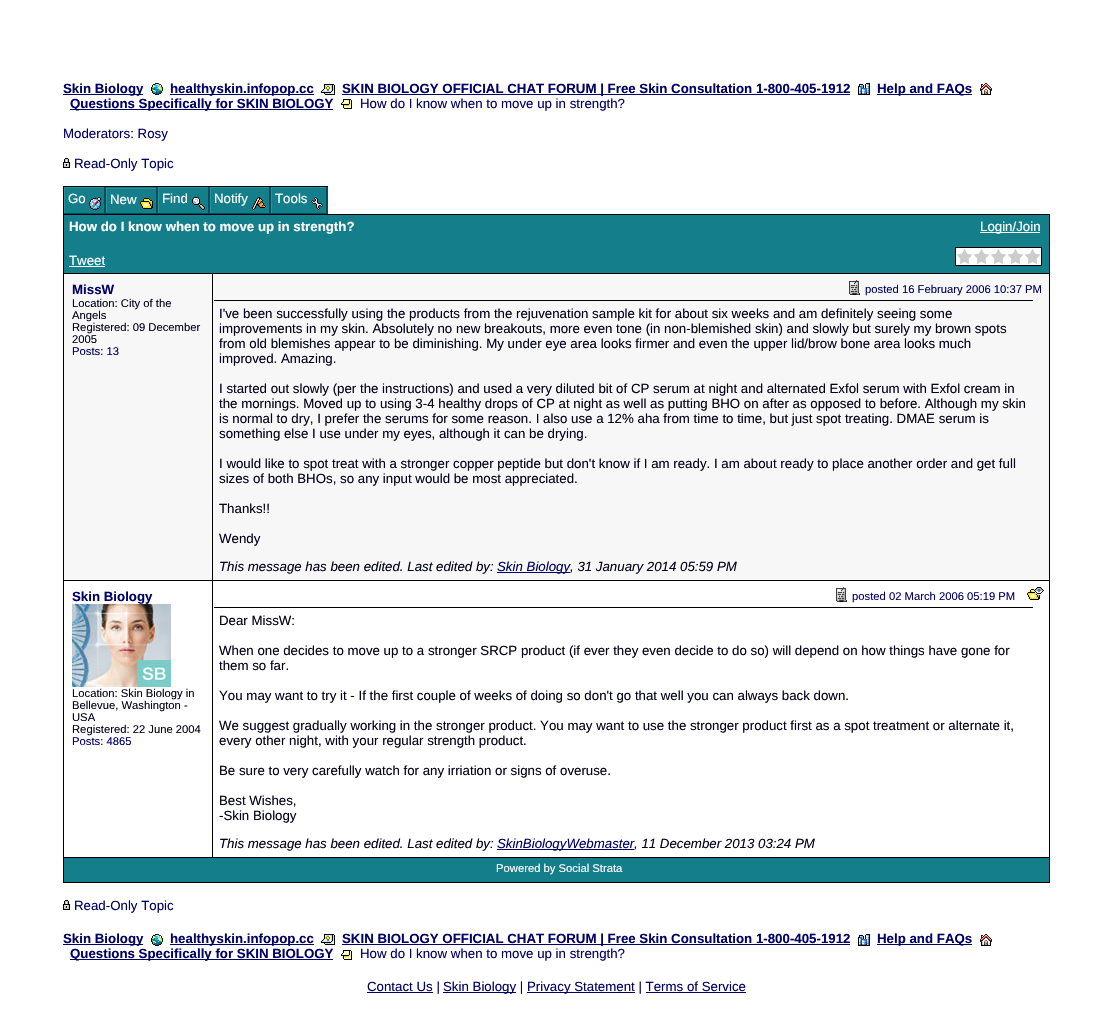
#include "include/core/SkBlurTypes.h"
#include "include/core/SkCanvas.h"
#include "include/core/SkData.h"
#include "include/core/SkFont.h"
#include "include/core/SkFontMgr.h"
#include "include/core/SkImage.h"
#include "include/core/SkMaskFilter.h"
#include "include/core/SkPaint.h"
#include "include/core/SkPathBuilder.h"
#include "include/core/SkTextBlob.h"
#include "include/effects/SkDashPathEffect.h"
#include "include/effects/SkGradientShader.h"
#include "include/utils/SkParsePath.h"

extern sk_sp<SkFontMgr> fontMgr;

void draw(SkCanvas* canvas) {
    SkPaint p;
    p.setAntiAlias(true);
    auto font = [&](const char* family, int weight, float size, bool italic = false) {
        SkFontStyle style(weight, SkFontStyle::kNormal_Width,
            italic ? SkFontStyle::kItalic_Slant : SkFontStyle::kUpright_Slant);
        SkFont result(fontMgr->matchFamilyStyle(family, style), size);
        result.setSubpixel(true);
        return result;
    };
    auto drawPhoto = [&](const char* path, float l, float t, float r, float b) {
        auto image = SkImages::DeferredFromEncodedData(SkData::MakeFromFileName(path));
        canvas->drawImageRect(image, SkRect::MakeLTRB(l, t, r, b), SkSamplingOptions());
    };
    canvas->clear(0xFFFFFFFF);
    p.setColor(0xFF000066);
    canvas->drawRect(SkRect::MakeLTRB(63, 94, 143, 95), p);
    auto font1 = font("Liberation Sans", 700, 13.28f);
    canvas->drawString("Skin Biology", 63, 93, font1, p);
    drawPhoto("media/1.png", 151, 83, 163, 95);
    canvas->drawRect(SkRect::MakeLTRB(170, 94, 314, 95), p);
    canvas->drawString("healthyskin.infopop.cc", 170, 93, font1, p);
    drawPhoto("media/2.png", 321, 84, 335, 95);
    canvas->drawRect(SkRect::MakeLTRB(342, 94, 850, 95), p);
    canvas->drawString("SKIN BIOLOGY OFFICIAL CHAT FORUM | Free Skin Consultation 1-800-405-1912", 342, 93, font1, p);
    drawPhoto("media/3.png", 858, 83, 870, 95);
    canvas->drawRect(SkRect::MakeLTRB(877, 94, 972, 95), p);
    canvas->drawString("Help and FAQs", 877, 93, font1, p);
    drawPhoto("media/4.png", 980, 83, 992, 95);
    canvas->drawRect(SkRect::MakeLTRB(70, 109, 333, 110), p);
    canvas->drawString("Questions Specifically for SKIN BIOLOGY", 70, 108, font1, p);
    drawPhoto("media/5.png", 341, 99, 352, 109);
    auto font2 = font("Liberation Sans", 400, 13.28f);
    canvas->drawString("How do I know when to move up in strength?", 360, 108, font2, p);
    canvas->drawString("Moderators: Rosy", 63, 138, font2, p);
    drawPhoto("media/6.png", 63, 158, 70, 168);
    canvas->drawString("Read-Only Topic", 74, 168, font2, p);
    {
        const struct { float l, t, r, b; SkColor color; } items[] = {
            {63, 186, 328, 187, 0xFF000000},
            {63, 186, 64, 273, 0xFF000000},
            {65, 188, 104, 213, 0xFF147E8A},
            {104, 187, 106, 214, 0xFF004C58},
            {64, 213, 106, 214, 0xFF004C58},
            {64, 187, 104, 188, 0xFF28929E},
            {64, 187, 65, 213, 0xFF28929E},
        };
        for (auto [l, t, r, b, color] : items) {
            p.setColor(color);
            canvas->drawRect(SkRect::MakeLTRB(l, t, r, b), p);
        }
    }
    p.setColor(0xFFFFFFFF);
    canvas->drawString("Go", 68, 203, font2, p);
    drawPhoto("media/7.png", 89, 197, 101, 210);
    {
        const struct { float l, t, r, b; SkColor color; } items[] = {
            {106, 187, 156, 213, 0xFF147E8A},
            {156, 187, 158, 214, 0xFF004C58},
            {106, 213, 158, 214, 0xFF004C58},
            {106, 188, 156, 189, 0xFF28929E},
            {106, 188, 107, 212, 0xFF28929E},
        };
        for (auto [l, t, r, b, color] : items) {
            p.setColor(color);
            canvas->drawRect(SkRect::MakeLTRB(l, t, r, b), p);
        }
    }
    p.setColor(0xFFFFFFFF);
    canvas->drawString("New", 110, 204, font2, p);
    drawPhoto("media/8.png", 140, 198, 153, 209);
    {
        const struct { float l, t, r, b; SkColor color; } items[] = {
            {159, 188, 208, 213, 0xFF147E8A},
            {208, 187, 210, 214, 0xFF004C58},
            {158, 213, 210, 214, 0xFF004C58},
            {158, 187, 208, 188, 0xFF28929E},
            {158, 187, 159, 213, 0xFF28929E},
        };
        for (auto [l, t, r, b, color] : items) {
            p.setColor(color);
            canvas->drawRect(SkRect::MakeLTRB(l, t, r, b), p);
        }
    }
    p.setColor(0xFFFFFFFF);
    canvas->drawString("Find", 162, 203, font2, p);
    drawPhoto("media/9.png", 192, 197, 205, 210);
    {
        const struct { float l, t, r, b; SkColor color; } items[] = {
            {211, 188, 269, 213, 0xFF147E8A},
            {269, 187, 271, 214, 0xFF004C58},
            {210, 213, 271, 214, 0xFF004C58},
            {210, 187, 269, 188, 0xFF28929E},
            {210, 187, 211, 213, 0xFF28929E},
        };
        for (auto [l, t, r, b, color] : items) {
            p.setColor(color);
            canvas->drawRect(SkRect::MakeLTRB(l, t, r, b), p);
        }
    }
    p.setColor(0xFFFFFFFF);
    canvas->drawString("Notify", 214, 203, font2, p);
    drawPhoto("media/10.png", 252, 197, 266, 210);
    {
        const struct { float l, t, r, b; SkColor color; } items[] = {
            {272, 188, 326, 213, 0xFF147E8A},
            {326, 187, 328, 214, 0xFF004C58},
            {271, 213, 328, 214, 0xFF004C58},
            {271, 187, 326, 188, 0xFF28929E},
            {271, 187, 272, 213, 0xFF28929E},
        };
        for (auto [l, t, r, b, color] : items) {
            p.setColor(color);
            canvas->drawRect(SkRect::MakeLTRB(l, t, r, b), p);
        }
    }
    p.setColor(0xFFFFFFFF);
    canvas->drawString("Tools", 275, 203, font2, p);
    drawPhoto("media/11.png", 311, 197, 323, 210);
    p.setColor(0xFF147E8A);
    canvas->drawRect(SkRect::MakeLTRB(64, 215, 1049, 273), p);
    p.setColor(0xFF000000);
    canvas->drawRect(SkRect::MakeLTRB(64, 214, 1050, 215), p);
    p.setColor(0xFFFFFFFF);
    canvas->drawString("How do I know when to move up in strength?", 69, 231, font1, p);
    canvas->drawString("Tweet", 69, 265, font2, p);
    canvas->drawRect(SkRect::MakeLTRB(69, 266, 105, 267), p);
    canvas->drawRect(SkRect::MakeLTRB(980, 232, 1040, 233), p);
    canvas->drawString("Login/Join", 980, 231, font2, p);
    p.setColor(0xFFCCCCCC);
    canvas->drawRect(SkRect::MakeLTRB(957, 249, 1040, 264), p);
    p.setStyle(SkPaint::kStroke_Style);
    p.setStrokeWidth(1);
    p.setColor(0xFF000000);
    canvas->drawRect(SkRect::MakeLTRB(955.5f, 247.5f, 1041.5f, 265.5f), p);
    drawPhoto("media/12.png", 956, 248, 973, 265);
    drawPhoto("media/12.png", 973, 248, 990, 265);
    drawPhoto("media/12.png", 990, 248, 1007, 265);
    drawPhoto("media/12.png", 1007, 248, 1024, 265);
    drawPhoto("media/12.png", 1024, 248, 1041, 265);
    p.setStyle(SkPaint::kFill_Style);
    {
        const struct { float l, t, r, b; SkColor color; } items[] = {
            {1049, 214, 1050, 273, 0xFF000000},
            {64, 274, 1049, 580, 0xFFF7F7F7},
            {63, 273, 1050, 274, 0xFF000000},
            {1049, 273, 1050, 580, 0xFF000000},
            {63, 273, 64, 580, 0xFF000000},
        };
        for (auto [l, t, r, b, color] : items) {
            p.setColor(color);
            canvas->drawRect(SkRect::MakeLTRB(l, t, r, b), p);
        }
    }
    p.setColor(0xFF000066);
    canvas->drawString("MissW", 72, 294, font1, p);
    auto font3 = font("Liberation Sans", 400, 11.25f);
    p.setColor(0xFF02021A);
    {
        const struct { const char* s; float x, y; } items[] = {
            {"Location: City of the", 72, 307},
            {"Angels", 72, 319},
            {"Registered: 09 December", 72, 331},
            {"2005", 72, 343},
        };
        for (auto [s, x, y] : items) {
            canvas->drawString(s, x, y, font3, p);
        }
    }
    p.setColor(0xFF000066);
    canvas->drawString("Posts: 13", 72, 355, font3, p);
    p.setColor(0xFF000000);
    canvas->drawRect(SkRect::MakeLTRB(212, 274, 213, 580), p);
    drawPhoto("media/13.png", 849, 280, 860, 295);
    p.setColor(0xFF000066);
    canvas->drawString("posted 16 February 2006 10:37 PM", 865, 293, font3, p);
    p.setColor(0xFF000000);
    canvas->drawRect(SkRect::MakeLTRB(214, 300, 1033, 301), p);
    p.setColor(0xFF02021A);
    {
        const struct { const char* s; float x, y; } items[] = {
            {"I've been successfully using the products from the rejuvenation sample kit for about six weeks and am definitely seeing some", 219, 318},
            {"improvements in my skin. Absolutely no new breakouts, more even tone (in non-blemished skin) and slowly but surely my brown spots", 219, 333},
            {"from old blemishes appear to be diminishing. My under eye area looks firmer and even the upper lid/brow bone area looks much", 219, 348},
            {"improved. Amazing.", 219, 363},
            {"I started out slowly (per the instructions) and used a very diluted bit of CP serum at night and alternated Exfol serum with Exfol cream in", 219, 393},
            {"the mornings. Moved up to using 3-4 healthy drops of CP at night as well as putting BHO on after as opposed to before. Although my skin", 219, 408},
            {"is normal to dry, I prefer the serums for some reason. I also use a 12% aha from time to time, but just spot treating. DMAE serum is", 219, 423},
            {"something else I use under my eyes, although it can be drying.", 219, 438},
            {"I would like to spot treat with a stronger copper peptide but don't know if I am ready. I am about ready to place another order and get full", 219, 468},
            {"sizes of both BHOs, so any input would be most appreciated.", 219, 483},
            {"Thanks!!", 219, 513},
            {"Wendy", 219, 543},
        };
        for (auto [s, x, y] : items) {
            canvas->drawString(s, x, y, font2, p);
        }
    }
    auto font4 = font("Liberation Sans", 400, 13.28f, true);
    canvas->drawString("This message has been edited. Last edited by:", 219, 571, font4, p);
    p.setColor(0xFF000066);
    canvas->drawRect(SkRect::MakeLTRB(497, 572, 570, 573), p);
    canvas->drawString("Skin Biology", 497, 571, font4, p);
    p.setColor(0xFF02021A);
    canvas->drawString(", 31 January 2014 05:59 PM", 570, 571, font4, p);
    {
        const struct { float l, t, r, b; SkColor color; } items[] = {
            {63, 580, 1050, 581, 0xFF000000},
            {1049, 580, 1050, 857, 0xFF000000},
            {63, 580, 64, 857, 0xFF000000},
        };
        for (auto [l, t, r, b, color] : items) {
            p.setColor(color);
            canvas->drawRect(SkRect::MakeLTRB(l, t, r, b), p);
        }
    }
    p.setColor(0xFF000066);
    canvas->drawString("Skin Biology", 72, 601, font1, p);
    drawPhoto("media/14.png", 72, 604, 171, 687);
    p.setColor(0xFF02021A);
    {
        const struct { const char* s; float x, y; } items[] = {
            {"Location: Skin Biology in", 72, 697},
            {"Bellevue, Washington -", 72, 709},
            {"USA", 72, 721},
            {"Registered: 22 June 2004", 72, 733},
        };
        for (auto [s, x, y] : items) {
            canvas->drawString(s, x, y, font3, p);
        }
    }
    p.setColor(0xFF000066);
    canvas->drawString("Posts: 4865", 72, 745, font3, p);
    p.setColor(0xFF000000);
    canvas->drawRect(SkRect::MakeLTRB(212, 581, 213, 857), p);
    drawPhoto("media/15.png", 836, 587, 847, 602);
    p.setColor(0xFF000066);
    canvas->drawString("posted 02 March 2006 05:19 PM", 852, 600, font3, p);
    drawPhoto("media/16.png", 1027, 587, 1044, 600);
    p.setColor(0xFF000000);
    canvas->drawRect(SkRect::MakeLTRB(214, 607, 1033, 608), p);
    p.setColor(0xFF02021A);
    {
        const struct { const char* s; float x, y; } items[] = {
            {"Dear MissW:", 219, 625},
            {"When one decides to move up to a stronger SRCP product (if ever they even decide to do so) will depend on how things have gone for", 219, 655},
            {"them so far.", 219, 670},
            {"You may want to try it - If the first couple of weeks of doing so don't go that well you can always back down.", 219, 700},
            {"We suggest gradually working in the stronger product. You may want to use the stronger product first as a spot treatment or alternate it,", 219, 730},
            {"every other night, with your regular strength product.", 219, 745},
            {"Be sure to very carefully watch for any irriation or signs of overuse.", 219, 775},
            {"Best Wishes,", 219, 805},
            {"-Skin Biology", 219, 820},
        };
        for (auto [s, x, y] : items) {
            canvas->drawString(s, x, y, font2, p);
        }
    }
    canvas->drawString("This message has been edited. Last edited by:", 219, 848, font4, p);
    p.setColor(0xFF000066);
    canvas->drawRect(SkRect::MakeLTRB(497, 849, 634, 850), p);
    canvas->drawString("SkinBiologyWebmaster", 497, 848, font4, p);
    p.setColor(0xFF02021A);
    canvas->drawString(", 11 December 2013 03:24 PM", 634, 848, font4, p);
    {
        const struct { float l, t, r, b; SkColor color; } items[] = {
            {64, 858, 1049, 882, 0xFF147E8A},
            {63, 857, 1050, 858, 0xFF000000},
            {63, 882, 1040, 883, 0xFF000000},
            {63, 857, 64, 883, 0xFF000000},
        };
        for (auto [l, t, r, b, color] : items) {
            p.setColor(color);
            canvas->drawRect(SkRect::MakeLTRB(l, t, r, b), p);
        }
    }
    p.setColor(0xFFFFFFFF);
    canvas->drawString("Powered by Social Strata", 496, 872, font3, p);
    p.setColor(0xFF000000);
    canvas->drawRect(SkRect::MakeLTRB(1049, 857, 1050, 883), p);
    canvas->drawRect(SkRect::MakeLTRB(1040, 882, 1050, 883), p);
    drawPhoto("media/6.png", 63, 900, 70, 910);
    p.setColor(0xFF000066);
    canvas->drawString("Read-Only Topic", 74, 910, font2, p);
    canvas->drawRect(SkRect::MakeLTRB(63, 944, 143, 945), p);
    canvas->drawString("Skin Biology", 63, 943, font1, p);
    drawPhoto("media/1.png", 151, 934, 163, 946);
    canvas->drawRect(SkRect::MakeLTRB(170, 944, 314, 945), p);
    canvas->drawString("healthyskin.infopop.cc", 170, 943, font1, p);
    drawPhoto("media/2.png", 321, 934, 335, 945);
    canvas->drawRect(SkRect::MakeLTRB(342, 944, 850, 945), p);
    canvas->drawString("SKIN BIOLOGY OFFICIAL CHAT FORUM | Free Skin Consultation 1-800-405-1912", 342, 943, font1, p);
    drawPhoto("media/3.png", 858, 934, 870, 946);
    canvas->drawRect(SkRect::MakeLTRB(877, 944, 972, 945), p);
    canvas->drawString("Help and FAQs", 877, 943, font1, p);
    drawPhoto("media/4.png", 980, 934, 992, 946);
    canvas->drawRect(SkRect::MakeLTRB(70, 959, 333, 960), p);
    canvas->drawString("Questions Specifically for SKIN BIOLOGY", 70, 958, font1, p);
    drawPhoto("media/5.png", 341, 950, 352, 960);
    canvas->drawString("How do I know when to move up in strength?", 360, 958, font2, p);
    canvas->drawRect(SkRect::MakeLTRB(367, 992, 433, 993), p);
    canvas->drawString("Contact Us |", 367, 991, font2, p);
    canvas->drawRect(SkRect::MakeLTRB(443, 992, 516, 993), p);
    canvas->drawString("Skin Biology |", 443, 991, font2, p);
    canvas->drawRect(SkRect::MakeLTRB(527, 992, 635, 993), p);
    canvas->drawString("Privacy Statement | Terms of Service", 527, 991, font2, p);
    canvas->drawRect(SkRect::MakeLTRB(646, 992, 746, 993), p);
}
